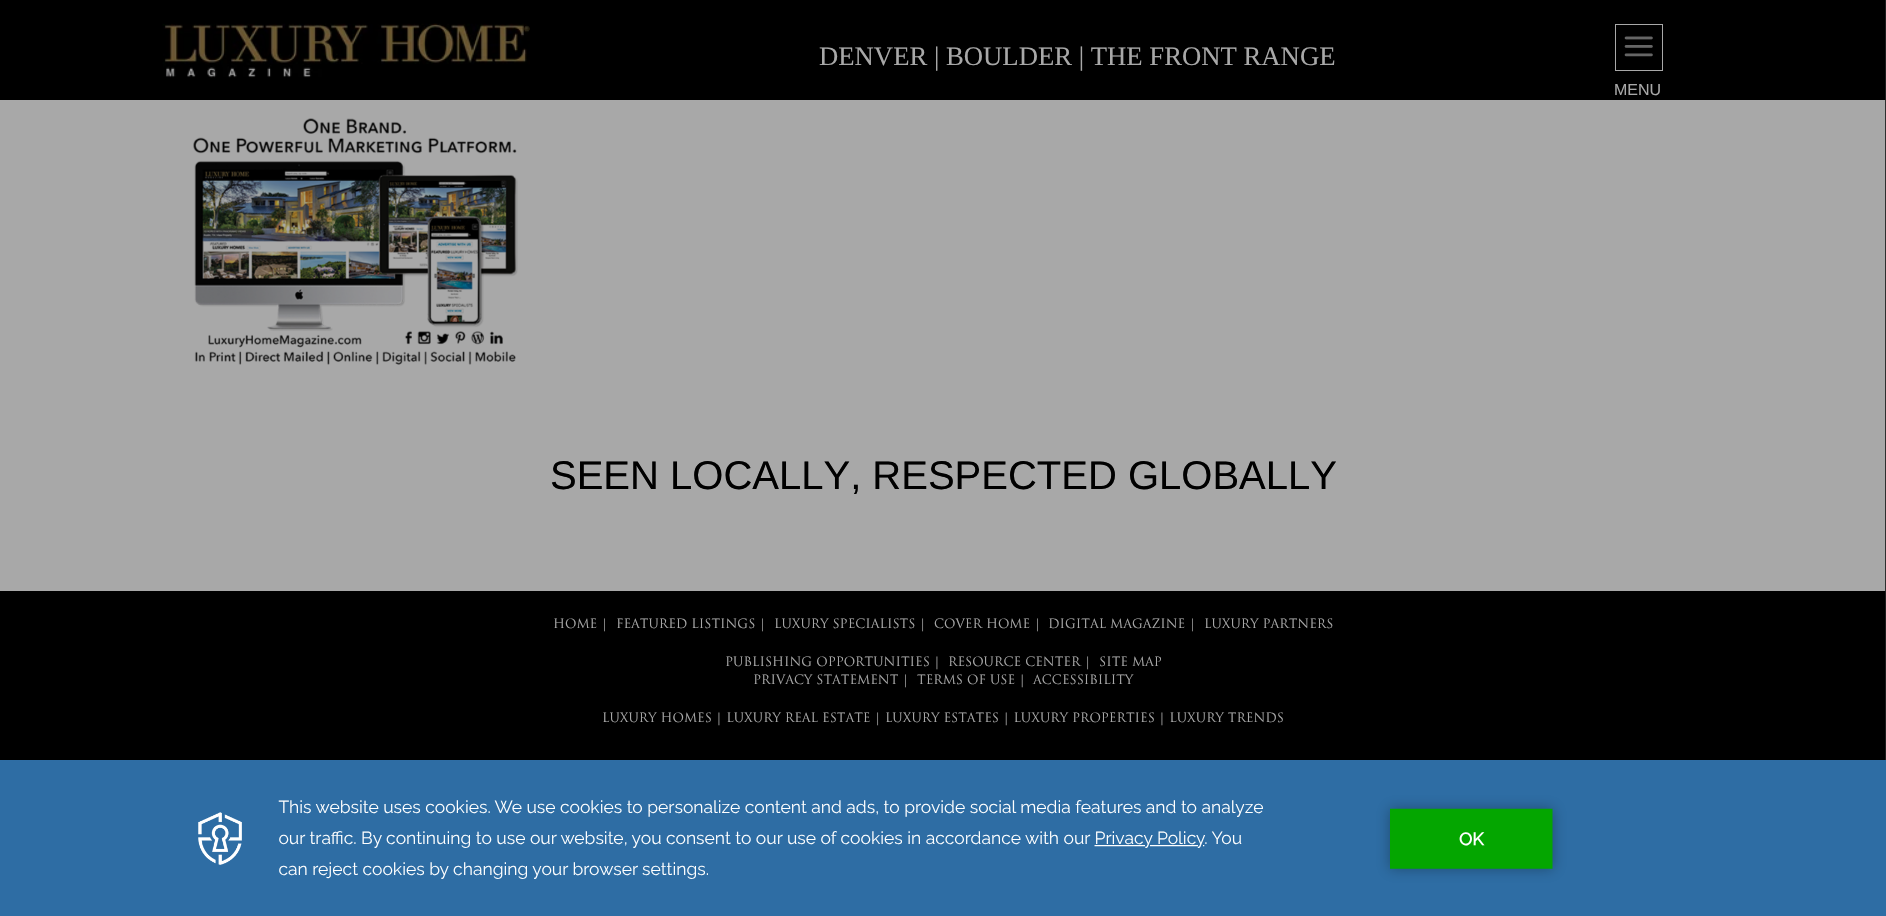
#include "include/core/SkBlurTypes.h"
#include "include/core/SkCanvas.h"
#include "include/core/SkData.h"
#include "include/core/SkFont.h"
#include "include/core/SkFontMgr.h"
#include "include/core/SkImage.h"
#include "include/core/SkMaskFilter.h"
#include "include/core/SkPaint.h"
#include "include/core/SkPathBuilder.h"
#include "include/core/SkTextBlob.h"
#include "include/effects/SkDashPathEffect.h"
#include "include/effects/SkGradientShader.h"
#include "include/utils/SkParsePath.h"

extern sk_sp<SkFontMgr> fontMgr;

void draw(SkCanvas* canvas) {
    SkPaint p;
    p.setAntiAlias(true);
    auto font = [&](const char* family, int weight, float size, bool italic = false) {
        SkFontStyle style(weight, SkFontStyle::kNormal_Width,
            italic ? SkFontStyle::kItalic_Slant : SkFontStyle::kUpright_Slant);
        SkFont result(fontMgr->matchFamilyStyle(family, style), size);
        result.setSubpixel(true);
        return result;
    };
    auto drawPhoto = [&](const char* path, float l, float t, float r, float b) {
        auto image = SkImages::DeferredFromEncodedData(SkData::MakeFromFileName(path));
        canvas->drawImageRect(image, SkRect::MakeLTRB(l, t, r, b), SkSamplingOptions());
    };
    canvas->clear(0xFFA8A8A8);
    {
        const struct { float l, t, r, b; SkColor color; } items[] = {
            {1885, 100, 1886, 591, 0xFF2F2F2F},
            {0, 0, 1885, 100, 0xFF000000},
            {1885, 0, 1886, 100, 0xFF1E1E1E},
        };
        for (auto [l, t, r, b, color] : items) {
            p.setColor(color);
            canvas->drawRect(SkRect::MakeLTRB(l, t, r, b), p);
        }
    }
    drawPhoto("media/1.png", 162, 23, 530, 78);
    auto font1 = font("Liberation Serif", 400, 26.7f);
    p.setColor(0xFFA8A8A8);
    canvas->drawString("DENVER | BOULDER | THE FRONT RANGE", 819, 65, font1, p);
    p.setStyle(SkPaint::kStroke_Style);
    p.setStrokeWidth(1);
    canvas->drawRect(SkRect::MakeLTRB(1615.5f, 24.5f, 1662.5f, 70.5f), p);
    drawPhoto("media/2.png", 1624, 36, 1653, 57);
    auto font2 = font("Liberation Sans", 400, 16);
    p.setStyle(SkPaint::kFill_Style);
    canvas->drawString("MENU", 1614, 95, font2, p);
    drawPhoto("media/3.png", 193, 118, 518, 365);
    auto font3 = font("Liberation Sans", 400, 40);
    p.setColor(0xFF000000);
    canvas->drawString("SEEN LOCALLY, RESPECTED GLOBALLY", 550, 489, font3, p);
    canvas->drawRect(SkRect::MakeLTRB(0, 591, 1885, 760), p);
    p.setColor(0xFF1E1E1E);
    canvas->drawRect(SkRect::MakeLTRB(1885, 591, 1886, 760), p);
    auto font4 = font("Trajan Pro", 400, 12.5f);
    p.setColor(0xFFA8A8A8);
    {
        const struct { const char* s; float x, y; } items[] = {
            {"HOME |", 553, 628},
            {"FEATURED LISTINGS |", 616, 628},
            {"LUXURY SPECIALISTS |", 774, 628},
            {"COVER HOME |", 934, 628},
            {"DIGITAL MAGAZINE |", 1048, 628},
            {"LUXURY PARTNERS", 1204, 628},
            {"PUBLISHING OPPORTUNITIES |", 725, 666},
            {"RESOURCE CENTER |", 948, 666},
            {"SITE MAP", 1099, 666},
            {"PRIVACY STATEMENT |", 753, 684},
            {"TERMS OF USE |", 917, 684},
            {"ACCESSIBILITY", 1033, 684},
            {"LUXURY HOMES | LUXURY REAL ESTATE | LUXURY ESTATES | LUXURY PROPERTIES | LUXURY TRENDS", 602, 722},
        };
        for (auto [s, x, y] : items) {
            canvas->drawString(s, x, y, font4, p);
        }
    }
    drawPhoto("media/4.png", 0, 760, 1886, 916);
}
